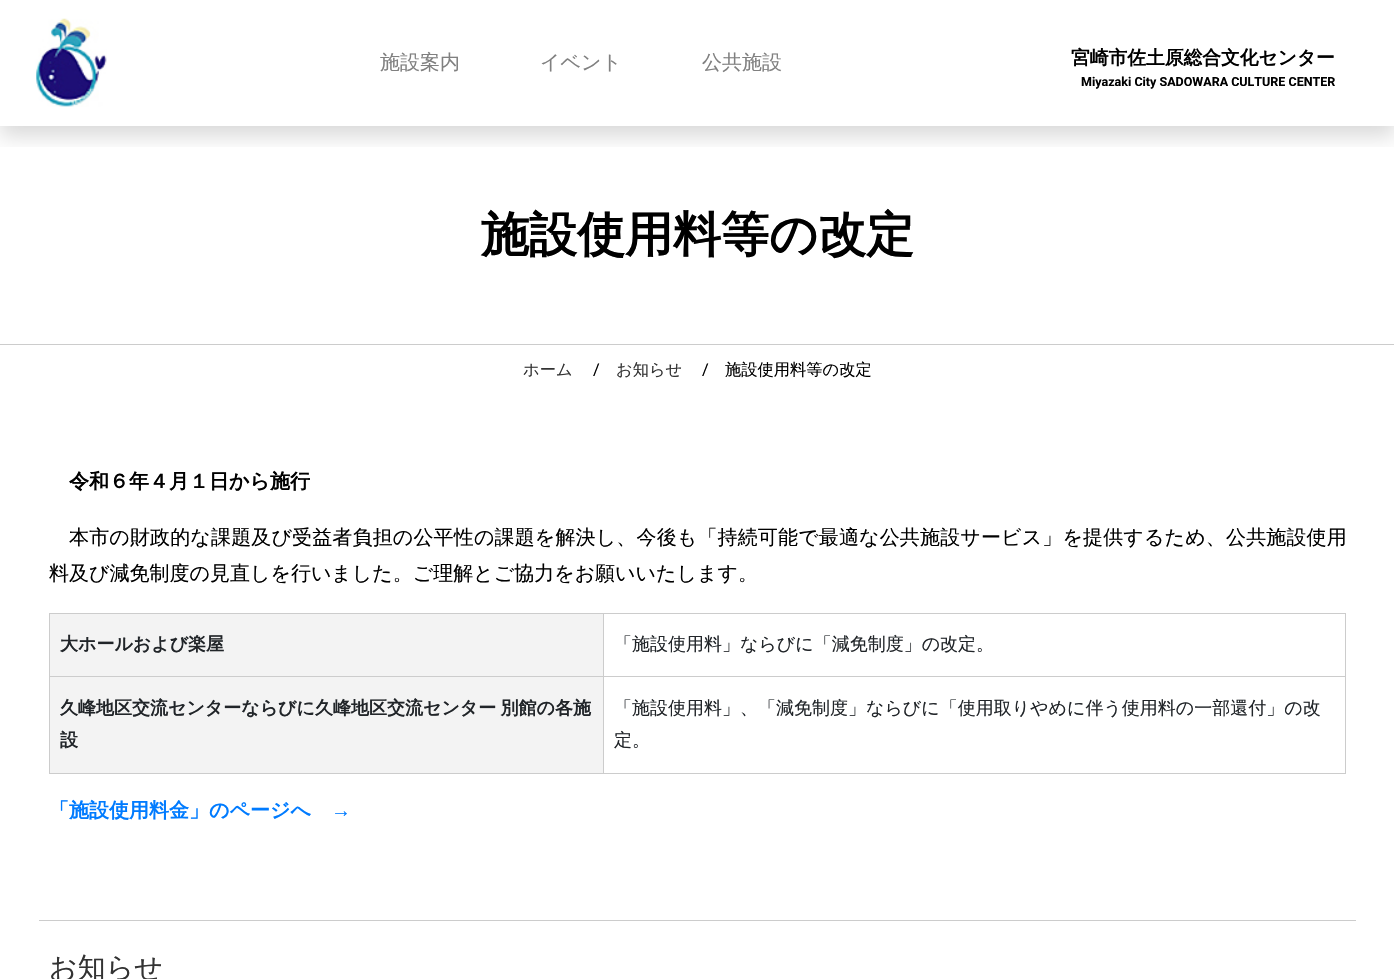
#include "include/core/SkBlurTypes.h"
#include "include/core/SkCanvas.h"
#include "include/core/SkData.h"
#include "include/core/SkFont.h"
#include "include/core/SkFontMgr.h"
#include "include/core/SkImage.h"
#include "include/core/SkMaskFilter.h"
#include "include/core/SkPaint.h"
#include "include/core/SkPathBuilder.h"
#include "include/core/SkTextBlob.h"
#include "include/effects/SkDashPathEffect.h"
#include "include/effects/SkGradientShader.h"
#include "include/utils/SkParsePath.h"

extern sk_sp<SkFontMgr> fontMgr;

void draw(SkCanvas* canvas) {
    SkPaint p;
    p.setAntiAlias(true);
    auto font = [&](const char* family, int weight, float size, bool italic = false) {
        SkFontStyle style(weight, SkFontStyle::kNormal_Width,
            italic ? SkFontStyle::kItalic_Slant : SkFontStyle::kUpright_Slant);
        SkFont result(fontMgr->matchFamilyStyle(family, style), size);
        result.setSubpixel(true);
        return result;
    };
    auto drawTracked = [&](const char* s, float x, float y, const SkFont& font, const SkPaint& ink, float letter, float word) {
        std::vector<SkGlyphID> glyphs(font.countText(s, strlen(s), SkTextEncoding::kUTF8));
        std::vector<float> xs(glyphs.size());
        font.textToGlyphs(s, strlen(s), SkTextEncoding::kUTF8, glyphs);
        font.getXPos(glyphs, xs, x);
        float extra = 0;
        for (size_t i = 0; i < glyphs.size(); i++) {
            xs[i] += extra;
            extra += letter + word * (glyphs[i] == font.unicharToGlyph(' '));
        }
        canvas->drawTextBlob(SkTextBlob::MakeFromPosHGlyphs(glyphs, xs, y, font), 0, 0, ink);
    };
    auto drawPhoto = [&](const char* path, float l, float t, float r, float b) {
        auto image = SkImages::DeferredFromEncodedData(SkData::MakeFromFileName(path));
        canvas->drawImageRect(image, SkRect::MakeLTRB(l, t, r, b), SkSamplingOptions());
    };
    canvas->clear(0xFFFFFFFF);
    canvas->save();
    canvas->clipRect(SkRect::MakeLTRB(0, 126, 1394, 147));
    p.setColor(0x26000000);
    p.setMaskFilter(SkMaskFilter::MakeBlur(kNormal_SkBlurStyle, 10));
    canvas->drawRect(SkRect::MakeLTRB(0, 10, 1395, 136), p);
    p.setMaskFilter(nullptr);
    canvas->restore();
    drawPhoto("media/1.png", 35, 18, 107, 107);
    auto font1 = font("WenQuanYi Zen Hei", 500, 20);
    p.setColor(0xFF808080);
    {
        const struct { const char* s; float x, y; } items[] = {
            {"施設案内", 380, 69},
            {"イベント", 540, 69},
            {"公共施設", 702, 69},
        };
        for (auto [s, x, y] : items) {
            canvas->drawString(s, x, y, font1, p);
        }
    }
    auto font2 = font("WenQuanYi Zen Hei", 700, 18.75f);
    p.setColor(0xFF000000);
    canvas->drawString("宮崎市佐土原総合文化センター", 1071, 64, font2, p);
    auto font3 = font("Roboto", 700, 12.5f);
    canvas->drawString("Miyazaki City SADOWARA CULTURE CENTER", 1081, 86, font3, p);
    p.setColor(0xFFCCCCCC);
    canvas->drawRect(SkRect::MakeLTRB(0, 344, 1394, 345), p);
    auto font4 = font("WenQuanYi Zen Hei", 700, 48);
    p.setColor(0xFF000000);
    canvas->drawString("施設使用料等の改定", 481, 251, font4, p);
    auto font5 = font("WenQuanYi Zen Hei", 500, 16.25f);
    p.setColor(0xFF333333);
    canvas->drawString("ホーム", 523, 375, font5, p);
    auto font6 = font("Roboto", 400, 16.25f);
    p.setColor(0xFF000000);
    canvas->drawString("/", 593, 375, font6, p);
    p.setColor(0xFF333333);
    canvas->drawString("お知らせ", 616, 375, font5, p);
    p.setColor(0xFF000000);
    canvas->drawString("/", 702, 375, font6, p);
    canvas->drawString("施設使用料等の改定", 725, 375, font5, p);
    auto font7 = font("WenQuanYi Zen Hei", 700, 20);
    canvas->drawString("令和６年４月１日から施行", 69, 488, font7, p);
    drawTracked("本市の財政的な課題及び受益者負担の公平性の課題を解決し、今後も「持続可能で最適な公共施設サービス」を提供するため、公共施設使用", 69, 544, font1, p, 0.15f, 0);
    canvas->drawString("料及び減免制度の見直しを行いました。ご理解とご協力をお願いいたします。", 49, 580, font1, p);
    {
        const struct { float l, t, r, b; SkColor color; } items[] = {
            {49, 613, 1346, 614, 0xFFCCCCCC},
            {1345, 613, 1346, 774, 0xFFCCCCCC},
            {49, 773, 1346, 774, 0xFFCCCCCC},
            {49, 613, 50, 774, 0xFFCCCCCC},
            {50, 614, 603, 773, 0xFFF3F3F3},
        };
        for (auto [l, t, r, b, color] : items) {
            p.setColor(color);
            canvas->drawRect(SkRect::MakeLTRB(l, t, r, b), p);
        }
    }
    auto font8 = font("WenQuanYi Zen Hei", 700, 18);
    p.setColor(0xFF212529);
    canvas->drawString("大ホールおよび楽屋", 60, 650, font8, p);
    {
        const struct { float l, t, r, b; SkColor color; } items[] = {
            {603, 676, 1346, 677, 0xFFCCCCCC},
            {603, 676, 604, 774, 0xFFCCCCCC},
            {49, 676, 604, 677, 0xFFCCCCCC},
            {603, 613, 604, 678, 0xFFCCCCCC},
        };
        for (auto [l, t, r, b, color] : items) {
            p.setColor(color);
            canvas->drawRect(SkRect::MakeLTRB(l, t, r, b), p);
        }
    }
    auto font9 = font("WenQuanYi Zen Hei", 500, 18);
    p.setColor(0xFF212529);
    canvas->drawString("「施設使用料」ならびに「減免制度」の改定。", 614, 650, font9, p);
    drawTracked("久峰地区交流センターならびに久峰地区交流センター 別館の各施", 60, 714, font8, p, 0, -1);
    canvas->drawString("設", 60, 746, font8, p);
    canvas->drawString("「施設使用料」、「減免制度」ならびに「使用取りやめに伴う使用料の一部還付」の改", 614, 714, font9, p);
    canvas->drawString("定。", 614, 746, font9, p);
    p.setColor(0xFF007BFF);
    canvas->drawString("「施設使用料金」のページへ", 49, 817, font7, p);
    auto font10 = font("Liberation Sans", 700, 20);
    canvas->drawString("→", 331, 817, font10, p);
    p.setColor(0xFFCCCCCC);
    canvas->drawRect(SkRect::MakeLTRB(39, 920, 1356, 921), p);
    auto font11 = font("WenQuanYi Zen Hei", 500, 28);
    p.setColor(0xFF333333);
    canvas->drawString("お知らせ", 49, 977, font11, p);
}
